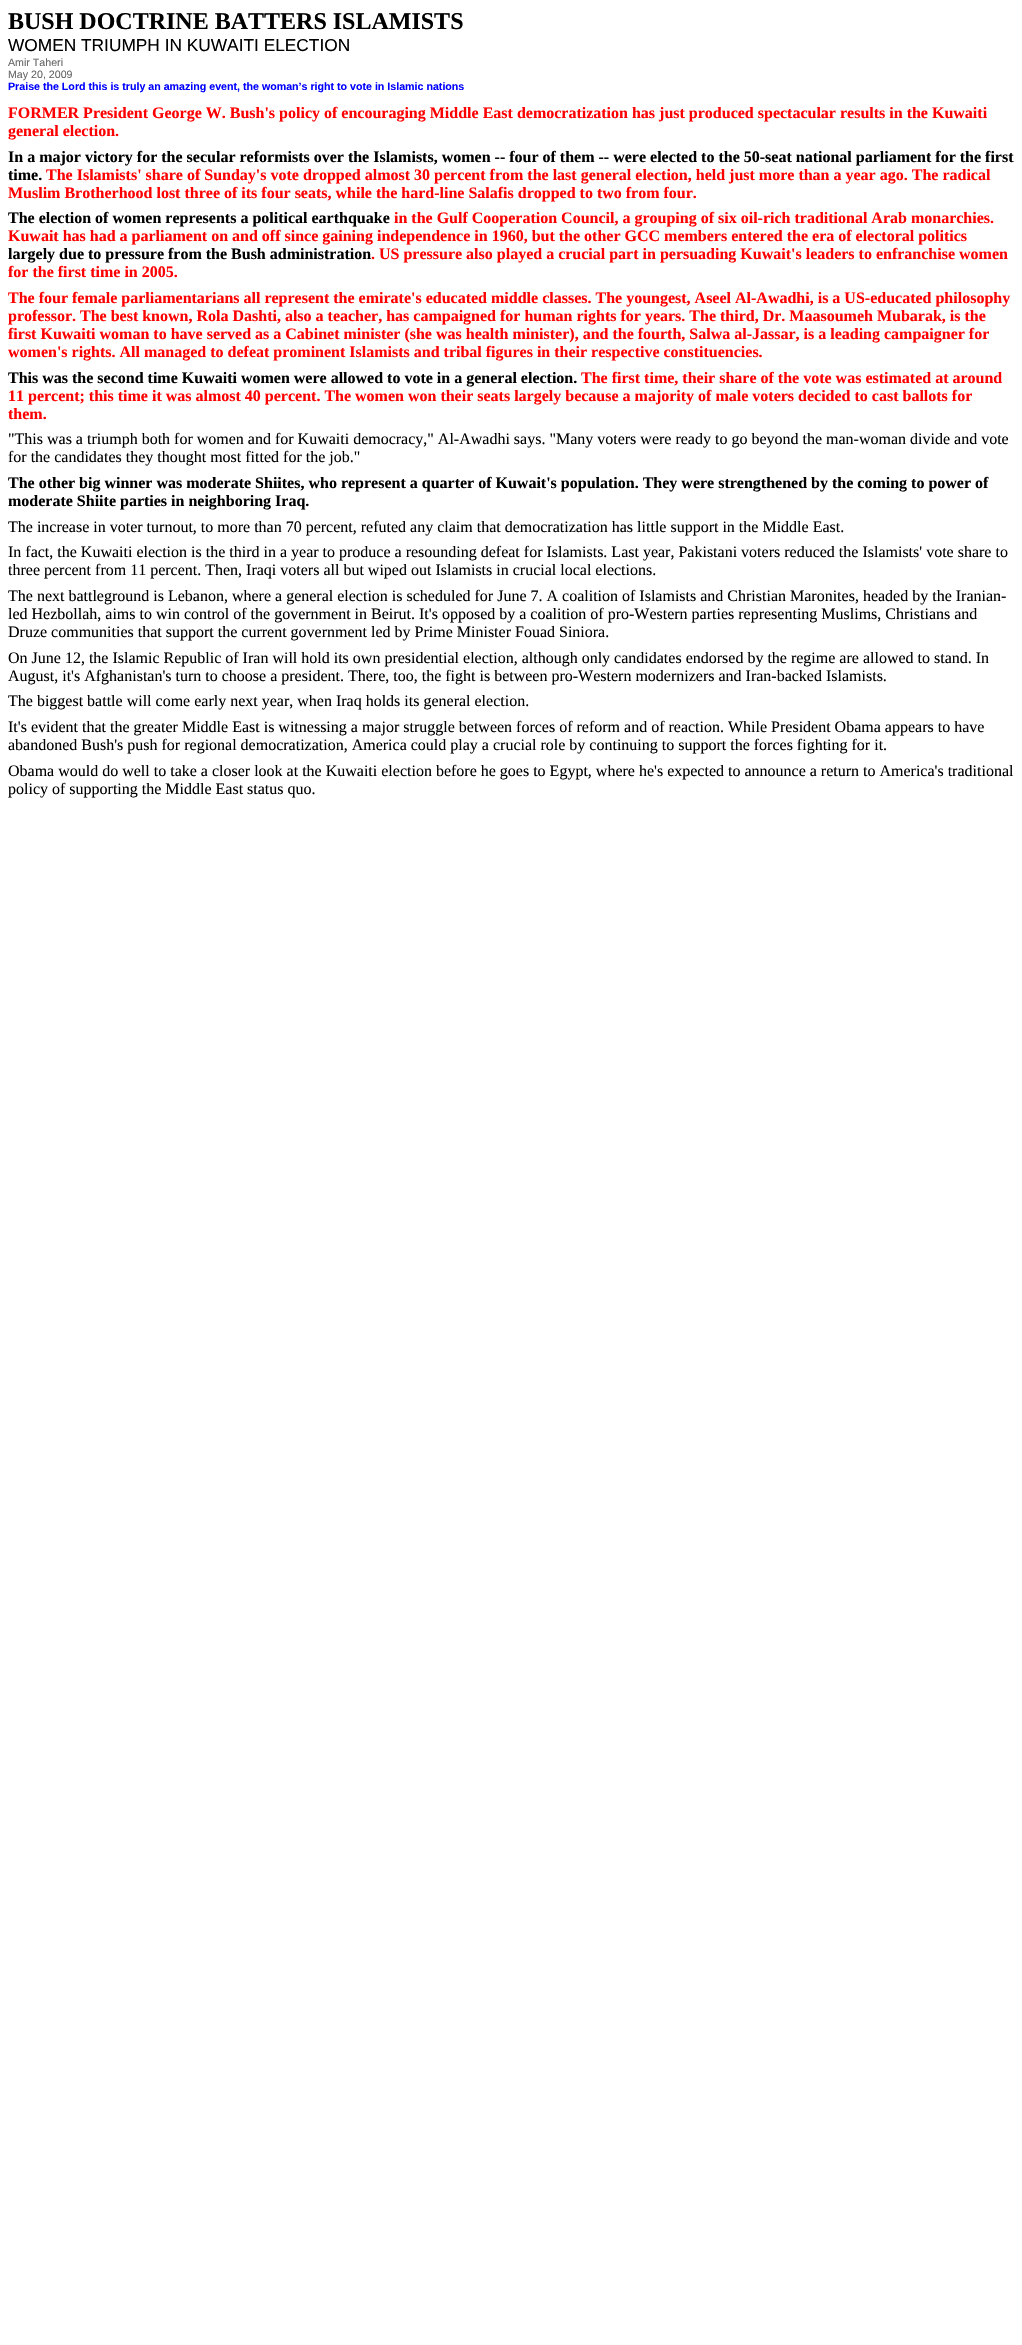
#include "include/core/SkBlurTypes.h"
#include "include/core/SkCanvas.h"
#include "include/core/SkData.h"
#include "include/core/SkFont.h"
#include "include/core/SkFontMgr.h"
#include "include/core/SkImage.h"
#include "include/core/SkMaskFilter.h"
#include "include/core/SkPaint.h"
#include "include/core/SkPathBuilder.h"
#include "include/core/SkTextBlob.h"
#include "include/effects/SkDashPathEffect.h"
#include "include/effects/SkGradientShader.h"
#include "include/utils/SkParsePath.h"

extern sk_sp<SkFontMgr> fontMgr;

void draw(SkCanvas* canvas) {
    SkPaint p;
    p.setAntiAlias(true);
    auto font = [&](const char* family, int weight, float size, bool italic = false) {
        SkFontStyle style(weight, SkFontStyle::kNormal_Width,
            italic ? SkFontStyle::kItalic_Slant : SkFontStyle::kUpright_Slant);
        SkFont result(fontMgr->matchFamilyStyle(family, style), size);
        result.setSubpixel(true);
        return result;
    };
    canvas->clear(0xFFFFFFFF);
    auto font1 = font("Liberation Serif", 700, 24);
    p.setColor(0xFF000000);
    canvas->drawString("BUSH DOCTRINE BATTERS ISLAMISTS", 8, 29, font1, p);
    auto font2 = font("Liberation Sans", 400, 17.3f);
    canvas->drawString("WOMEN TRIUMPH IN KUWAITI ELECTION", 8, 51, font2, p);
    auto font3 = font("Liberation Sans", 400, 10.65f);
    p.setColor(0xFF666666);
    canvas->drawString("Amir Taheri", 8, 66, font3, p);
    canvas->drawString("May 20, 2009", 8, 78, font3, p);
    auto font4 = font("Liberation Sans", 700, 10.65f);
    p.setColor(0xFF0000FF);
    canvas->drawString("Praise the Lord this is truly an amazing event, the woman’s right to vote in Islamic nations", 8, 90, font4, p);
    auto font5 = font("Liberation Serif", 700, 16);
    p.setColor(0xFFFF0000);
    canvas->drawString("FORMER President George W. Bush's policy of encouraging Middle East democratization has just produced spectacular results in the Kuwaiti", 8, 118, font5, p);
    canvas->drawString("general election.", 8, 136, font5, p);
    p.setColor(0xFF000000);
    canvas->drawString("In a major victory for the secular reformists over the Islamists, women -- four of them -- were elected to the 50-seat national parliament for the first", 8, 162, font5, p);
    canvas->drawString("time.", 8, 180, font5, p);
    p.setColor(0xFFFF0000);
    canvas->drawString("The Islamists' share of Sunday's vote dropped almost 30 percent from the last general election, held just more than a year ago. The radical", 46, 180, font5, p);
    canvas->drawString("Muslim Brotherhood lost three of its four seats, while the hard-line Salafis dropped to two from four.", 8, 198, font5, p);
    p.setColor(0xFF000000);
    canvas->drawString("The election of women represents a political earthquake", 8, 223, font5, p);
    p.setColor(0xFFFF0000);
    canvas->drawString("in the Gulf Cooperation Council, a grouping of six oil-rich traditional Arab monarchies.", 394, 223, font5, p);
    canvas->drawString("Kuwait has had a parliament on and off since gaining independence in 1960, but the other GCC members entered the era of electoral politics", 8, 241, font5, p);
    p.setColor(0xFF000000);
    canvas->drawString("largely due to pressure from the Bush administration", 8, 259, font5, p);
    p.setColor(0xFFFF0000);
    {
        const struct { const char* s; float x, y; } items[] = {
            {". US pressure also played a crucial part in persuading Kuwait's leaders to enfranchise women", 371, 259},
            {"for the first time in 2005.", 8, 277},
            {"The four female parliamentarians all represent the emirate's educated middle classes. The youngest, Aseel Al-Awadhi, is a US-educated philosophy", 8, 303},
            {"professor. The best known, Rola Dashti, also a teacher, has campaigned for human rights for years. The third, Dr. Maasoumeh Mubarak, is the", 8, 321},
            {"first Kuwaiti woman to have served as a Cabinet minister (she was health minister), and the fourth, Salwa al-Jassar, is a leading campaigner for", 8, 339},
            {"women's rights. All managed to defeat prominent Islamists and tribal figures in their respective constituencies.", 8, 357},
        };
        for (auto [s, x, y] : items) {
            canvas->drawString(s, x, y, font5, p);
        }
    }
    p.setColor(0xFF000000);
    canvas->drawString("This was the second time Kuwaiti women were allowed to vote in a general election.", 8, 383, font5, p);
    p.setColor(0xFFFF0000);
    {
        const struct { const char* s; float x, y; } items[] = {
            {"The first time, their share of the vote was estimated at around", 581, 383},
            {"11 percent; this time it was almost 40 percent. The women won their seats largely because a majority of male voters decided to cast ballots for", 8, 401},
            {"them.", 8, 419},
        };
        for (auto [s, x, y] : items) {
            canvas->drawString(s, x, y, font5, p);
        }
    }
    auto font6 = font("Liberation Serif", 400, 16);
    p.setColor(0xFF000000);
    canvas->drawString("\"This was a triumph both for women and for Kuwaiti democracy,\" Al-Awadhi says. \"Many voters were ready to go beyond the man-woman divide and vote", 8, 444, font6, p);
    canvas->drawString("for the candidates they thought most fitted for the job.\"", 8, 462, font6, p);
    canvas->drawString("The other big winner was moderate Shiites, who represent a quarter of Kuwait's population. They were strengthened by the coming to power of", 8, 488, font5, p);
    canvas->drawString("moderate Shiite parties in neighboring Iraq.", 8, 506, font5, p);
    {
        const struct { const char* s; float x, y; } items[] = {
            {"The increase in voter turnout, to more than 70 percent, refuted any claim that democratization has little support in the Middle East.", 8, 532},
            {"In fact, the Kuwaiti election is the third in a year to produce a resounding defeat for Islamists. Last year, Pakistani voters reduced the Islamists' vote share to", 8, 557},
            {"three percent from 11 percent. Then, Iraqi voters all but wiped out Islamists in crucial local elections.", 8, 575},
            {"The next battleground is Lebanon, where a general election is scheduled for June 7. A coalition of Islamists and Christian Maronites, headed by the Iranian-", 8, 601},
            {"led Hezbollah, aims to win control of the government in Beirut. It's opposed by a coalition of pro-Western parties representing Muslims, Christians and", 8, 619},
            {"Druze communities that support the current government led by Prime Minister Fouad Siniora.", 8, 637},
            {"On June 12, the Islamic Republic of Iran will hold its own presidential election, although only candidates endorsed by the regime are allowed to stand. In", 8, 663},
            {"August, it's Afghanistan's turn to choose a president. There, too, the fight is between pro-Western modernizers and Iran-backed Islamists.", 8, 681},
            {"The biggest battle will come early next year, when Iraq holds its general election.", 8, 706},
            {"It's evident that the greater Middle East is witnessing a major struggle between forces of reform and of reaction. While President Obama appears to have", 8, 732},
            {"abandoned Bush's push for regional democratization, America could play a crucial role by continuing to support the forces fighting for it.", 8, 750},
            {"Obama would do well to take a closer look at the Kuwaiti election before he goes to Egypt, where he's expected to announce a return to America's traditional", 8, 776},
            {"policy of supporting the Middle East status quo.", 8, 794},
        };
        for (auto [s, x, y] : items) {
            canvas->drawString(s, x, y, font6, p);
        }
    }
}
